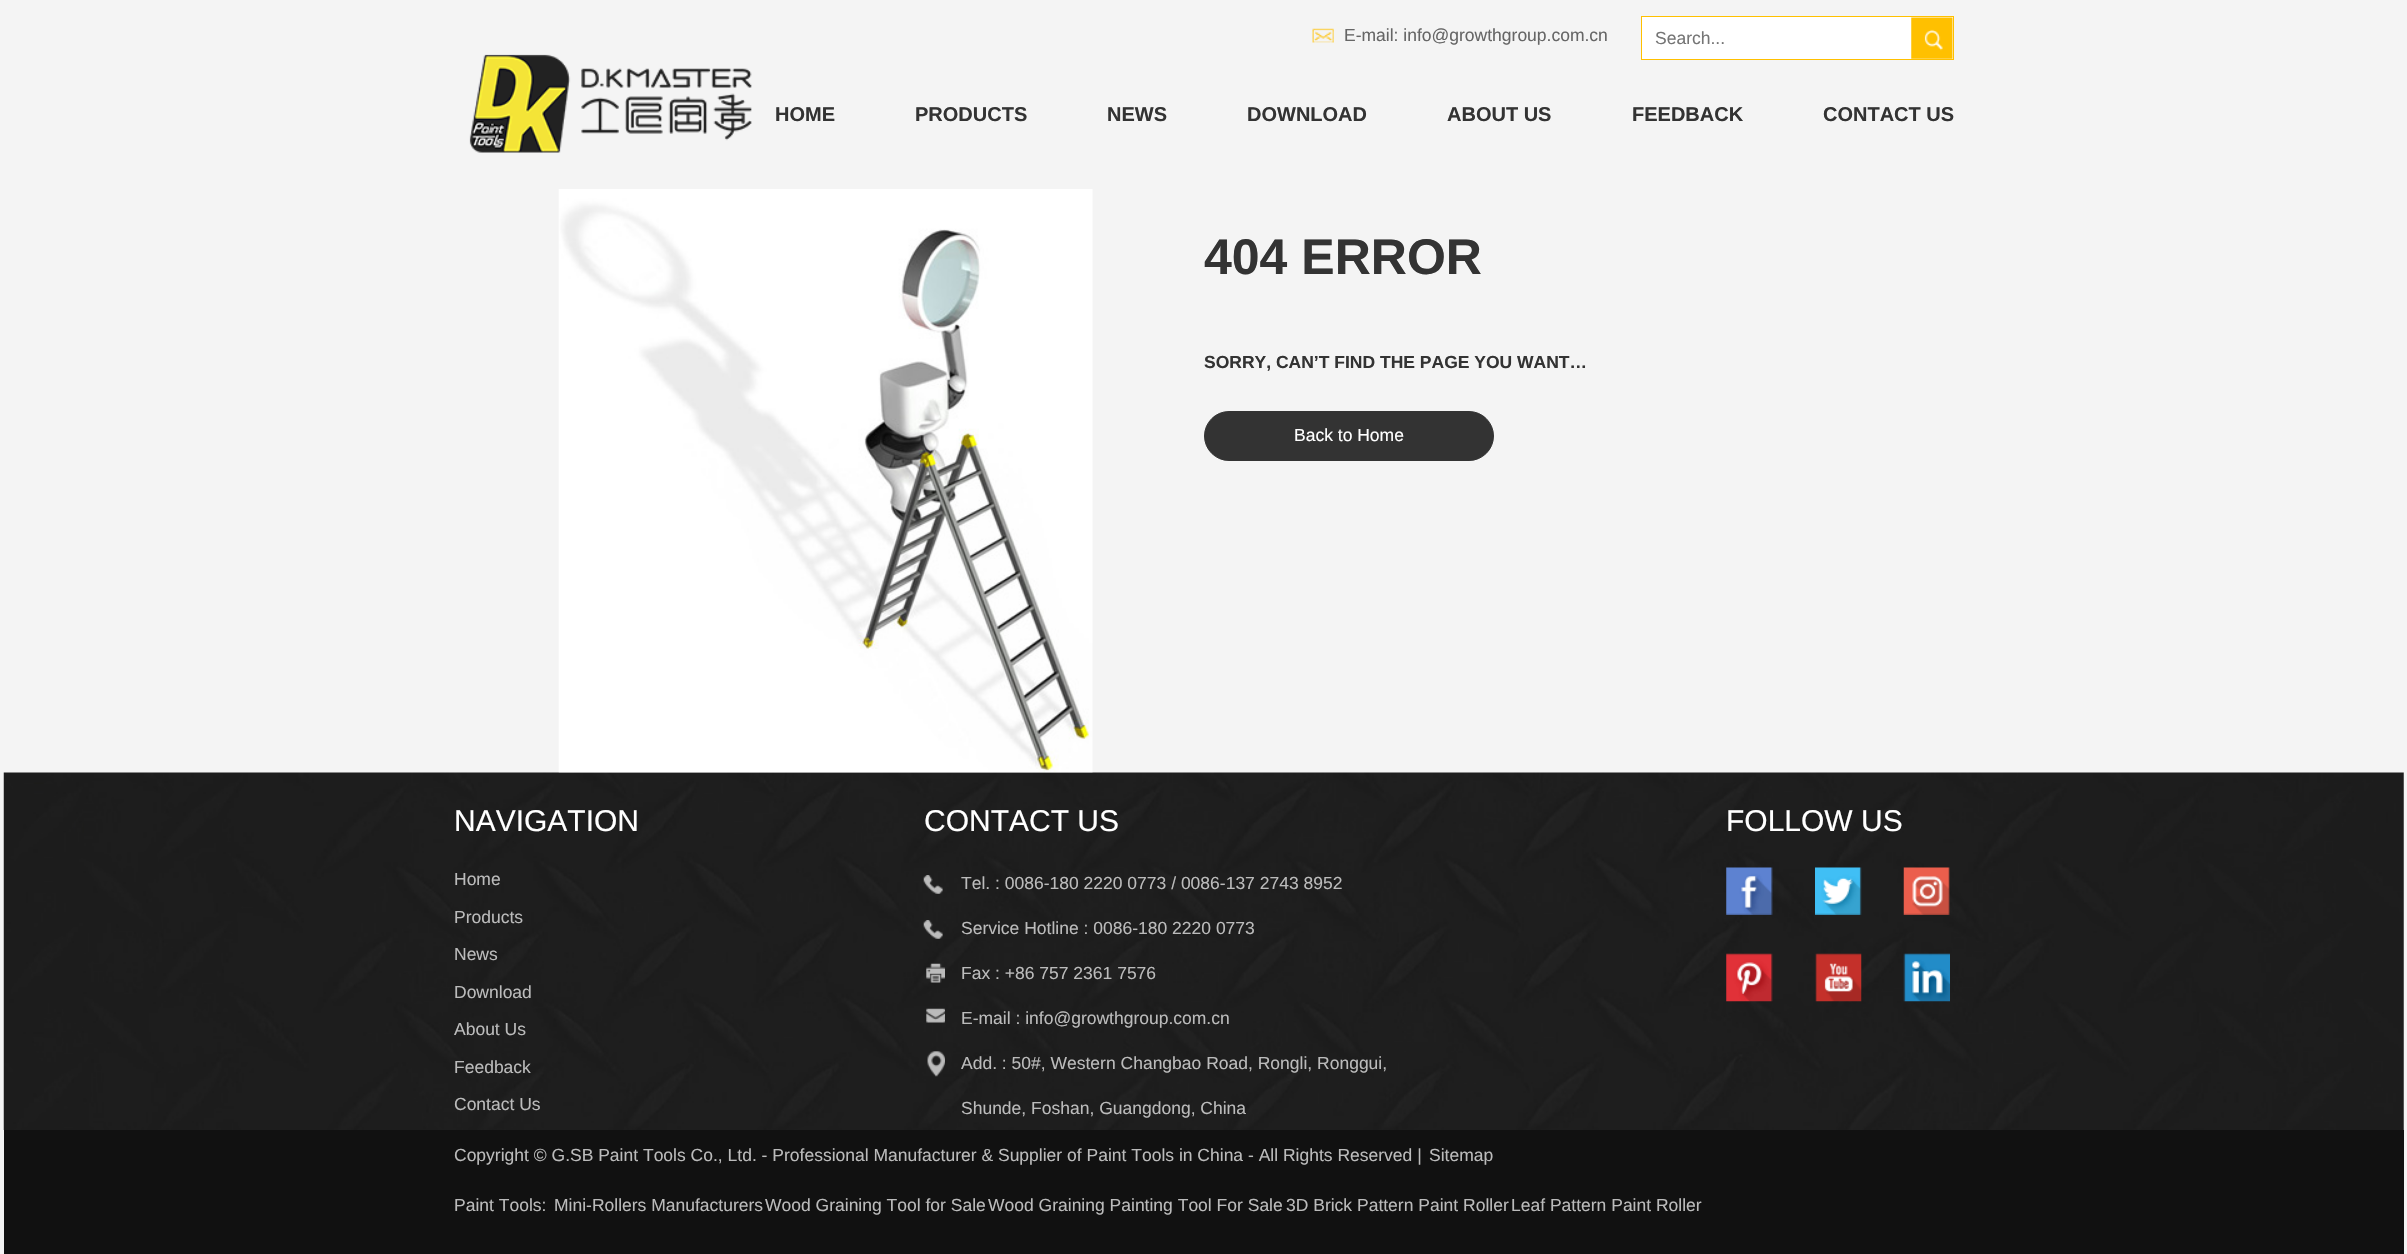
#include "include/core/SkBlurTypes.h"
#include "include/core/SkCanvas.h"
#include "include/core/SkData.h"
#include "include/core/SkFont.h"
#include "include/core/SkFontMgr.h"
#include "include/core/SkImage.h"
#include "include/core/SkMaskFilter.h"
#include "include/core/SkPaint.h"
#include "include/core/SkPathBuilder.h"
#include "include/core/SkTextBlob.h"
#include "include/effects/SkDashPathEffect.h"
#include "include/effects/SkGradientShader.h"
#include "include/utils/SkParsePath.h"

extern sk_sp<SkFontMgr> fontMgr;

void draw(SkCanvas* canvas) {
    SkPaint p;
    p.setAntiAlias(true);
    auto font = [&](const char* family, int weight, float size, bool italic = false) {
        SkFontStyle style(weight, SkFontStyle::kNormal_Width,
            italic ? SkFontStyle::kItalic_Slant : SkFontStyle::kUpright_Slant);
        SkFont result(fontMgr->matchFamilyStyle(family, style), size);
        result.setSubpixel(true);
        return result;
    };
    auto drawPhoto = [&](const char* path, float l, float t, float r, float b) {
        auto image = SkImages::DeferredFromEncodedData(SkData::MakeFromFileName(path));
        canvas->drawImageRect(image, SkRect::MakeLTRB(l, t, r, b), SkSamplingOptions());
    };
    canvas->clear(0xFFF4F4F4);
    drawPhoto("media/1.png", 469, 54, 752, 153);
    drawPhoto("media/2.png", 1312, 28, 1334, 43);
    auto font1 = font("Liberation Sans", 400, 17.5f);
    p.setColor(0xFF666666);
    canvas->drawString("E-mail: info@growthgroup.com.cn", 1344, 41, font1, p);
    p.setColor(0xFFFFFFFF);
    canvas->drawRect(SkRect::MakeLTRB(1641.5f, 16.5f, 1953.5f, 59.5f), p);
    p.setStyle(SkPaint::kStroke_Style);
    p.setStrokeWidth(1);
    p.setColor(0xFFFFC000);
    canvas->drawRect(SkRect::MakeLTRB(1641.5f, 16.5f, 1953.5f, 59.5f), p);
    p.setStyle(SkPaint::kFill_Style);
    p.setColor(0xFF757575);
    canvas->drawString("Search...", 1655, 44, font1, p);
    drawPhoto("media/3.png", 1911, 17, 1953, 59);
    auto font2 = font("Liberation Sans", 700, 20);
    p.setColor(0xFF333333);
    {
        const struct { const char* s; float x, y; } items[] = {
            {"HOME", 775, 121},
            {"PRODUCTS", 915, 121},
            {"NEWS", 1107, 121},
            {"DOWNLOAD", 1247, 121},
            {"ABOUT US", 1447, 121},
            {"FEEDBACK", 1632, 121},
            {"CONTACT US", 1823, 121},
        };
        for (auto [s, x, y] : items) {
            canvas->drawString(s, x, y, font2, p);
        }
    }
    drawPhoto("media/5.png", 3, 772, 2404, 1130);
    drawPhoto("media/4.png", 558, 189, 1093, 773);
    auto font3 = font("Liberation Sans", 700, 50);
    canvas->drawString("404 ERROR", 1204, 274, font3, p);
    auto font4 = font("Liberation Sans", 700, 17.5f);
    canvas->drawString("SORRY, CAN’T FIND THE PAGE YOU WANT…", 1204, 368, font4, p);
    canvas->drawRoundRect(SkRect::MakeLTRB(1204.5f, 411.5f, 1493.5f, 460.5f), 24.5f, 24.5f, p);
    p.setStyle(SkPaint::kStroke_Style);
    canvas->drawRoundRect(SkRect::MakeLTRB(1204.5f, 411.5f, 1493.5f, 460.5f), 24.5f, 24.5f, p);
    p.setStyle(SkPaint::kFill_Style);
    p.setColor(0xFFFFFFFF);
    canvas->drawString("Back to Home", 1294, 441, font1, p);
    auto font5 = font("Liberation Sans", 400, 30);
    canvas->drawString("NAVIGATION", 454, 831, font5, p);
    p.setColor(0xFFBBBBBB);
    {
        const struct { const char* s; float x, y; } items[] = {
            {"Home", 454, 885},
            {"Products", 454, 923},
            {"News", 454, 960},
            {"Download", 454, 998},
            {"About Us", 454, 1035},
            {"Feedback", 454, 1073},
            {"Contact Us", 454, 1110},
        };
        for (auto [s, x, y] : items) {
            canvas->drawString(s, x, y, font1, p);
        }
    }
    p.setColor(0xFFFFFFFF);
    canvas->drawString("CONTACT US", 924, 831, font5, p);
    drawPhoto("media/6.png", 923, 875, 943, 894);
    p.setColor(0xFFBBBBBB);
    canvas->drawString("Tel. : 0086-180 2220 0773 / 0086-137 2743 8952", 961, 889, font1, p);
    drawPhoto("media/7.png", 923, 920, 943, 939);
    canvas->drawString("Service Hotline : 0086-180 2220 0773", 961, 934, font1, p);
    drawPhoto("media/8.png", 926, 963, 945, 983);
    canvas->drawString("Fax : +86 757 2361 7576", 961, 979, font1, p);
    drawPhoto("media/9.png", 926, 1008, 945, 1023);
    canvas->drawString("E-mail : info@growthgroup.com.cn", 961, 1024, font1, p);
    drawPhoto("media/10.png", 927, 1051, 945, 1077);
    canvas->drawString("Add. : 50#, Western Changbao Road, Rongli, Ronggui,", 961, 1069, font1, p);
    canvas->drawString("Shunde, Foshan, Guangdong, China", 961, 1114, font1, p);
    p.setColor(0xFFFFFFFF);
    canvas->drawString("FOLLOW US", 1726, 831, font5, p);
    drawPhoto("media/11.png", 1726, 867, 1773, 915);
    drawPhoto("media/12.png", 1815, 867, 1862, 915);
    drawPhoto("media/13.png", 1903, 867, 1950, 915);
    drawPhoto("media/14.png", 1726, 953, 1773, 1002);
    drawPhoto("media/15.png", 1815, 953, 1862, 1002);
    drawPhoto("media/16.png", 1903, 953, 1950, 1002);
    p.setColor(0xFF111111);
    canvas->drawRect(SkRect::MakeLTRB(4, 1130, 2404, 1254), p);
    p.setColor(0xFFBBBBBB);
    {
        const struct { const char* s; float x, y; } items[] = {
            {"Copyright © G.SB Paint Tools Co., Ltd. - Professional Manufacturer & Supplier of Paint Tools in China - All Rights Reserved |", 454, 1161},
            {"Sitemap", 1429, 1161},
            {"Paint Tools:", 454, 1211},
            {"Mini-Rollers Manufacturers", 554, 1211},
            {"Wood Graining Tool for Sale", 765, 1211},
            {"Wood Graining Painting Tool For Sale", 988, 1211},
            {"3D Brick Pattern Paint Roller", 1286, 1211},
            {"Leaf Pattern Paint Roller", 1511, 1211},
        };
        for (auto [s, x, y] : items) {
            canvas->drawString(s, x, y, font1, p);
        }
    }
}
